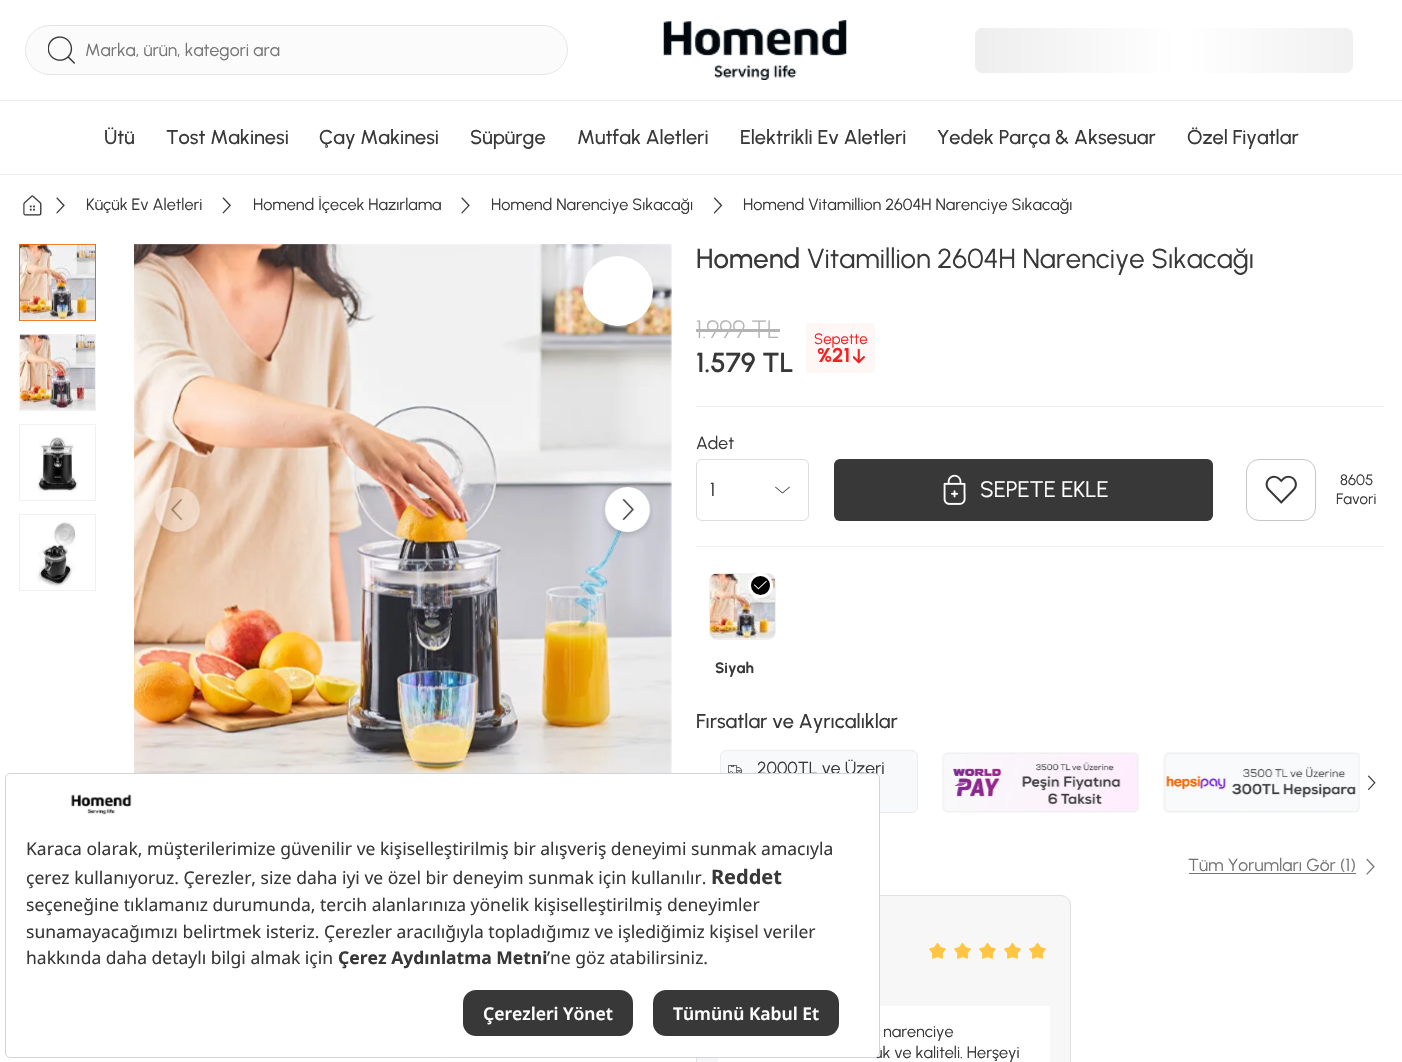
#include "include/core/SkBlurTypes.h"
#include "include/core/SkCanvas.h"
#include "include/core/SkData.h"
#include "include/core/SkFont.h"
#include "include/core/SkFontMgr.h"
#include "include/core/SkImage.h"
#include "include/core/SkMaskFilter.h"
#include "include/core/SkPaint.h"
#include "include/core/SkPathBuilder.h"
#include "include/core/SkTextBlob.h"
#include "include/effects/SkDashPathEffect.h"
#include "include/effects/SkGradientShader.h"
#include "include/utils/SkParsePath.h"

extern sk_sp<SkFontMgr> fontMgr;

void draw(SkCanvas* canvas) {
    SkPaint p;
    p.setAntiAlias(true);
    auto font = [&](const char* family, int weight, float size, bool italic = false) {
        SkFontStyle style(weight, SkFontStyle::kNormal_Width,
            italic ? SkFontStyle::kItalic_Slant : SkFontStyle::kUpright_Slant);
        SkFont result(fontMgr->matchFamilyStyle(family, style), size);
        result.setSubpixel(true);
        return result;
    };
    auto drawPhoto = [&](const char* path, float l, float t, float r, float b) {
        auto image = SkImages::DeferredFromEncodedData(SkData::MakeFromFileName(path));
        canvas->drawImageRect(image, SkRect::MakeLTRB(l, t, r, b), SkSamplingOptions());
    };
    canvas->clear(0xFFFFFFFF);
    p.setColor(0xFFECECEC);
    canvas->drawRect(SkRect::MakeLTRB(0, 174, 1402, 175), p);
    p.setColor(0xFFFBFBFB);
    canvas->drawRoundRect(SkRect::MakeLTRB(25.5f, 25.5f, 567.5f, 74.5f), 24.5f, 24.5f, p);
    p.setStyle(SkPaint::kStroke_Style);
    p.setStrokeWidth(1);
    p.setColor(0xFFE6E6E6);
    canvas->drawRoundRect(SkRect::MakeLTRB(25.5f, 25.5f, 567.5f, 74.5f), 24.5f, 24.5f, p);
    drawPhoto("media/1.png", 48, 36, 75, 64);
    auto font1 = font("Urbanist", 400, 17.5f);
    p.setStyle(SkPaint::kFill_Style);
    p.setColor(0xFF757575);
    canvas->drawString("Marka, ürün, kategori ara", 85, 56, font1, p);
    drawPhoto("media/2.png", 663, 20, 847, 80);
    p.setColor(0xFFEEEEEE);
    canvas->drawRoundRect(SkRect::MakeLTRB(975, 28, 1353, 73), 8, 8, p);
    canvas->drawPath(SkPathBuilder().moveTo(983, 28).lineTo(1284, 28).lineTo(1284, 73).lineTo(983, 73).cubicTo(978.5f, 73, 975, 69.5f, 975, 65).lineTo(975, 36).cubicTo(975, 31.5f, 978.5f, 28, 983, 28).close().detach(), p);
    {
        const SkColor colors[] = {0x00FFFFFF, 0xFFFFFFFF, 0x00FFFFFF};
        const float stops[] = {0, 0.5f, 1};
        const SkPoint ends[] = {{975, 50}, {1388, 50}};
        p.setShader(SkGradientShader::MakeLinear(ends, colors, stops, 3, SkTileMode::kClamp));
        p.setAlpha(255);
    }
    canvas->drawRoundRect(SkRect::MakeLTRB(975, 28, 1353, 73), 8, 8, p);
    p.setShader(nullptr);
    p.setColor(0xFFECECEC);
    canvas->drawRect(SkRect::MakeLTRB(0, 100, 1402, 101), p);
    auto font2 = font("Urbanist", 500, 20);
    p.setColor(0xFF383838);
    {
        const struct { const char* s; float x, y; } items[] = {
            {"Ütü", 104, 144},
            {"Tost Makinesi", 166, 144},
            {"Çay Makinesi", 319, 144},
            {"Süpürge", 470, 144},
            {"Mutfak Aletleri", 577, 144},
            {"Elektrikli Ev Aletleri", 740, 144},
            {"Yedek Parça & Aksesuar", 937, 144},
            {"Özel Fiyatlar", 1187, 144},
        };
        for (auto [s, x, y] : items) {
            canvas->drawString(s, x, y, font2, p);
        }
    }
    drawPhoto("media/3.png", 23, 195, 42, 216);
    drawPhoto("media/4.png", 56, 197, 65, 214);
    auto font3 = font("Urbanist", 400, 16.25f);
    canvas->drawString("Küçük Ev Aletleri", 86, 210, font3, p);
    drawPhoto("media/5.png", 222, 197, 231, 214);
    canvas->drawString("Homend İçecek Hazırlama", 253, 210, font3, p);
    drawPhoto("media/4.png", 461, 197, 470, 214);
    canvas->drawString("Homend Narenciye Sıkacağı", 491, 210, font3, p);
    drawPhoto("media/6.png", 713, 197, 723, 214);
    canvas->drawString("Homend Vitamillion 2604H Narenciye Sıkacağı", 743, 210, font3, p);
    p.setStyle(SkPaint::kStroke_Style);
    p.setColor(0xFFFA6400);
    canvas->drawRect(SkRect::MakeLTRB(19.5f, 244.5f, 95.5f, 320.5f), p);
    drawPhoto("media/7.png", 20, 244, 95, 321);
    p.setColor(0xFFF1F1F1);
    canvas->drawRect(SkRect::MakeLTRB(19.5f, 334.5f, 95.5f, 410.5f), p);
    drawPhoto("media/8.png", 20, 334, 95, 410);
    canvas->drawRect(SkRect::MakeLTRB(19.5f, 424.5f, 95.5f, 500.5f), p);
    drawPhoto("media/9.png", 37, 437, 79, 493);
    canvas->drawRect(SkRect::MakeLTRB(19.5f, 514.5f, 95.5f, 590.5f), p);
    drawPhoto("media/10.png", 36, 522, 76, 589);
    drawPhoto("media/11.png", 134, 244, 672, 773);
    drawPhoto("media/12.png", 154, 487, 201, 536);
    drawPhoto("media/13.png", 602, 487, 653, 538);
    p.setStyle(SkPaint::kFill_Style);
    p.setColor(0xFFFFFFFF);
    canvas->drawCircle(618, 291, 35, p);
    auto font4 = font("Urbanist", 500, 27.5f);
    p.setColor(0xFF383838);
    canvas->drawString("Homend", 696, 268, font4, p);
    auto font5 = font("Urbanist", 400, 27.5f);
    canvas->drawString("Vitamillion 2604H Narenciye Sıkacağı", 807, 268, font5, p);
    auto font6 = font("Urbanist", 300, 25);
    p.setColor(0xFFB4B4B4);
    canvas->drawString("1.999 TL", 696, 338, font6, p);
    canvas->drawRect(SkRect::MakeLTRB(696, 329, 780, 332), p);
    auto font7 = font("Urbanist", 600, 27.5f);
    p.setColor(0xFF383838);
    canvas->drawString("1.579 TL", 696, 372, font7, p);
    p.setColor(0xFFFEF7F6);
    canvas->drawRoundRect(SkRect::MakeLTRB(806, 323, 875, 373), 2.5f, 2.5f, p);
    auto font8 = font("Urbanist", 400, 15);
    p.setColor(0xFFF22222);
    canvas->drawString("Sepette", 814, 344, font8, p);
    auto font9 = font("Urbanist", 700, 20);
    canvas->drawString("%21", 817, 362, font9, p);
    drawPhoto("media/14.png", 853, 349, 865, 364);
    p.setColor(0xFFECECEC);
    canvas->drawRect(SkRect::MakeLTRB(696, 406, 1384, 407), p);
    p.setColor(0xFFF1F1F1);
    canvas->drawRect(SkRect::MakeLTRB(696, 546, 1384, 547), p);
    p.setColor(0xFF383838);
    canvas->drawString("Adet", 696, 449, font1, p);
    drawPhoto("media/15.png", 775, 486, 790, 494);
    p.setStyle(SkPaint::kStroke_Style);
    p.setColor(0xFFDDDDDD);
    canvas->drawRoundRect(SkRect::MakeLTRB(696.5f, 459.5f, 808.5f, 520.5f), 5.5f, 5.5f, p);
    auto font10 = font("Urbanist", 400, 19);
    p.setStyle(SkPaint::kFill_Style);
    p.setColor(0xFF383838);
    canvas->drawString("1", 710, 496, font10, p);
    canvas->drawRoundRect(SkRect::MakeLTRB(834, 459, 1213, 521), 6, 6, p);
    drawPhoto("media/16.png", 943, 474, 966, 505);
    auto font11 = font("Urbanist", 400, 22.5f);
    p.setColor(0xFFFFFFFF);
    canvas->drawString("SEPETE EKLE", 980, 497, font11, p);
    p.setStyle(SkPaint::kStroke_Style);
    p.setColor(0xFFC6C6C6);
    canvas->drawRoundRect(SkRect::MakeLTRB(1246.5f, 459.5f, 1315.5f, 520.5f), 12.5f, 12.5f, p);
    drawPhoto("media/17.png", 1265, 475, 1297, 504);
    p.setStyle(SkPaint::kFill_Style);
    p.setColor(0xFF383838);
    canvas->drawString("8605", 1340, 485, font8, p);
    canvas->drawString("Favori", 1336, 504, font8, p);
    p.setStyle(SkPaint::kStroke_Style);
    p.setColor(0xFFF1F1F1);
    canvas->drawRoundRect(SkRect::MakeLTRB(709.5f, 573.5f, 775.5f, 639.5f), 7.5f, 7.5f, p);
    drawPhoto("media/18.png", 710, 573, 775, 639);
    p.setStyle(SkPaint::kFill_Style);
    p.setColor(0xFF000000);
    canvas->drawCircle(760.5f, 585.5f, 11, p);
    p.setStyle(SkPaint::kStroke_Style);
    p.setStrokeWidth(3);
    p.setColor(0xFFFFFFFF);
    canvas->drawCircle(760.5f, 585.5f, 11, p);
    drawPhoto("media/19.png", 754, 580, 767, 590);
    auto font12 = font("Urbanist", 700, 15);
    p.setStyle(SkPaint::kFill_Style);
    p.setColor(0xFF383838);
    canvas->drawString("Siyah", 715, 673, font12, p);
    canvas->drawString("Fırsatlar ve Ayrıcalıklar", 696, 728, font2, p);
    p.setColor(0xFFF8F9FA);
    canvas->drawRoundRect(SkRect::MakeLTRB(720.5f, 750.5f, 917.5f, 812.5f), 5.5f, 5.5f, p);
    p.setStyle(SkPaint::kStroke_Style);
    p.setStrokeWidth(1);
    p.setColor(0xFFEDEDED);
    canvas->drawRoundRect(SkRect::MakeLTRB(720.5f, 750.5f, 917.5f, 812.5f), 5.5f, 5.5f, p);
    drawPhoto("media/20.png", 728, 765, 742, 773);
    p.setStyle(SkPaint::kFill_Style);
    p.setColor(0xFF383838);
    canvas->drawString("2000TL ve Üzeri", 757, 774, font1, p);
    drawPhoto("media/21.png", 942, 752, 1139, 813);
    drawPhoto("media/22.png", 1163, 752, 1360, 813);
    drawPhoto("media/23.png", 1368, 775, 1376, 791);
    p.setColor(0xFF757575);
    canvas->drawString("Tüm Yorumları Gör (1)", 1188, 871, font1, p);
    canvas->drawRect(SkRect::MakeLTRB(1189, 873, 1356, 874), p);
    drawPhoto("media/24.png", 1366, 858, 1375, 875);
    p.setColor(0xFFF7F7F7);
    canvas->drawRoundRect(SkRect::MakeLTRB(696.5f, 895.5f, 1070.5f, 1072.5f), 9.5f, 9.5f, p);
    p.setStyle(SkPaint::kStroke_Style);
    p.setColor(0xFFE0E0E0);
    canvas->drawRoundRect(SkRect::MakeLTRB(696.5f, 895.5f, 1070.5f, 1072.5f), 9.5f, 9.5f, p);
    drawPhoto("media/25.png", 929, 942, 946, 959);
    drawPhoto("media/25.png", 954, 942, 971, 959);
    drawPhoto("media/25.png", 979, 942, 996, 959);
    drawPhoto("media/25.png", 1004, 942, 1021, 959);
    drawPhoto("media/25.png", 1029, 942, 1046, 959);
    p.setStyle(SkPaint::kFill_Style);
    p.setColor(0xFFFFFFFF);
    canvas->drawRect(SkRect::MakeLTRB(718, 1006, 1050, 1062), p);
    p.setColor(0xFF383838);
    canvas->drawString("narenciye", 883, 1037, font3, p);
    canvas->drawString("ük ve kaliteli. Herşeyi", 874, 1058, font3, p);
    p.setColor(0xFFFFFFFF);
    canvas->drawRoundRect(SkRect::MakeLTRB(5.5f, 773.5f, 879.5f, 1057.5f), 4.5f, 4.5f, p);
    p.setStyle(SkPaint::kStroke_Style);
    p.setColor(0xFFD1D5DB);
    canvas->drawRoundRect(SkRect::MakeLTRB(5.5f, 773.5f, 879.5f, 1057.5f), 4.5f, 4.5f, p);
    drawPhoto("media/26.png", 70, 794, 132, 815);
    auto font13 = font("Noto Sans", 400, 17.5f);
    p.setStyle(SkPaint::kFill_Style);
    p.setColor(0xFF383838);
    canvas->drawString("Karaca olarak, müşterilerimize güvenilir ve kişiselleştirilmiş bir alışveriş deneyimi sunmak amacıyla", 26, 855, font13, p);
    canvas->drawString("çerez kullanıyoruz. Çerezler, size daha iyi ve özel bir deneyim sunmak için kullanılır.", 26, 884, font13, p);
    auto font14 = font("Noto Sans", 700, 20);
    canvas->drawString("Reddet", 711, 884, font14, p);
    {
        const struct { const char* s; float x, y; } items[] = {
            {"seçeneğine tıklamanız durumunda, tercih alanlarınıza yönelik kişiselleştirilmiş deneyimler", 26, 911},
            {"sunamayacağımızı belirtmek isteriz. Çerezler aracılığıyla topladığımız ve işlediğimiz kişisel veriler", 26, 938},
            {"hakkında daha detaylı bilgi almak için", 26, 964},
        };
        for (auto [s, x, y] : items) {
            canvas->drawString(s, x, y, font13, p);
        }
    }
    auto font15 = font("Noto Sans", 700, 17.5f);
    canvas->drawString("Çerez Aydınlatma Metni", 338, 964, font15, p);
    canvas->drawString("’ne göz atabilirsiniz.", 547, 964, font13, p);
    canvas->drawRoundRect(SkRect::MakeLTRB(463, 990, 633, 1036), 13, 13, p);
    auto font16 = font("Noto Sans", 600, 17.5f);
    p.setColor(0xFFFFFFFF);
    canvas->drawString("Çerezleri Yönet", 483, 1020, font16, p);
    p.setColor(0xFF383838);
    canvas->drawRoundRect(SkRect::MakeLTRB(653, 990, 839, 1036), 13, 13, p);
    p.setColor(0xFFFFFFFF);
    canvas->drawString("Tümünü Kabul Et", 673, 1020, font16, p);
}
